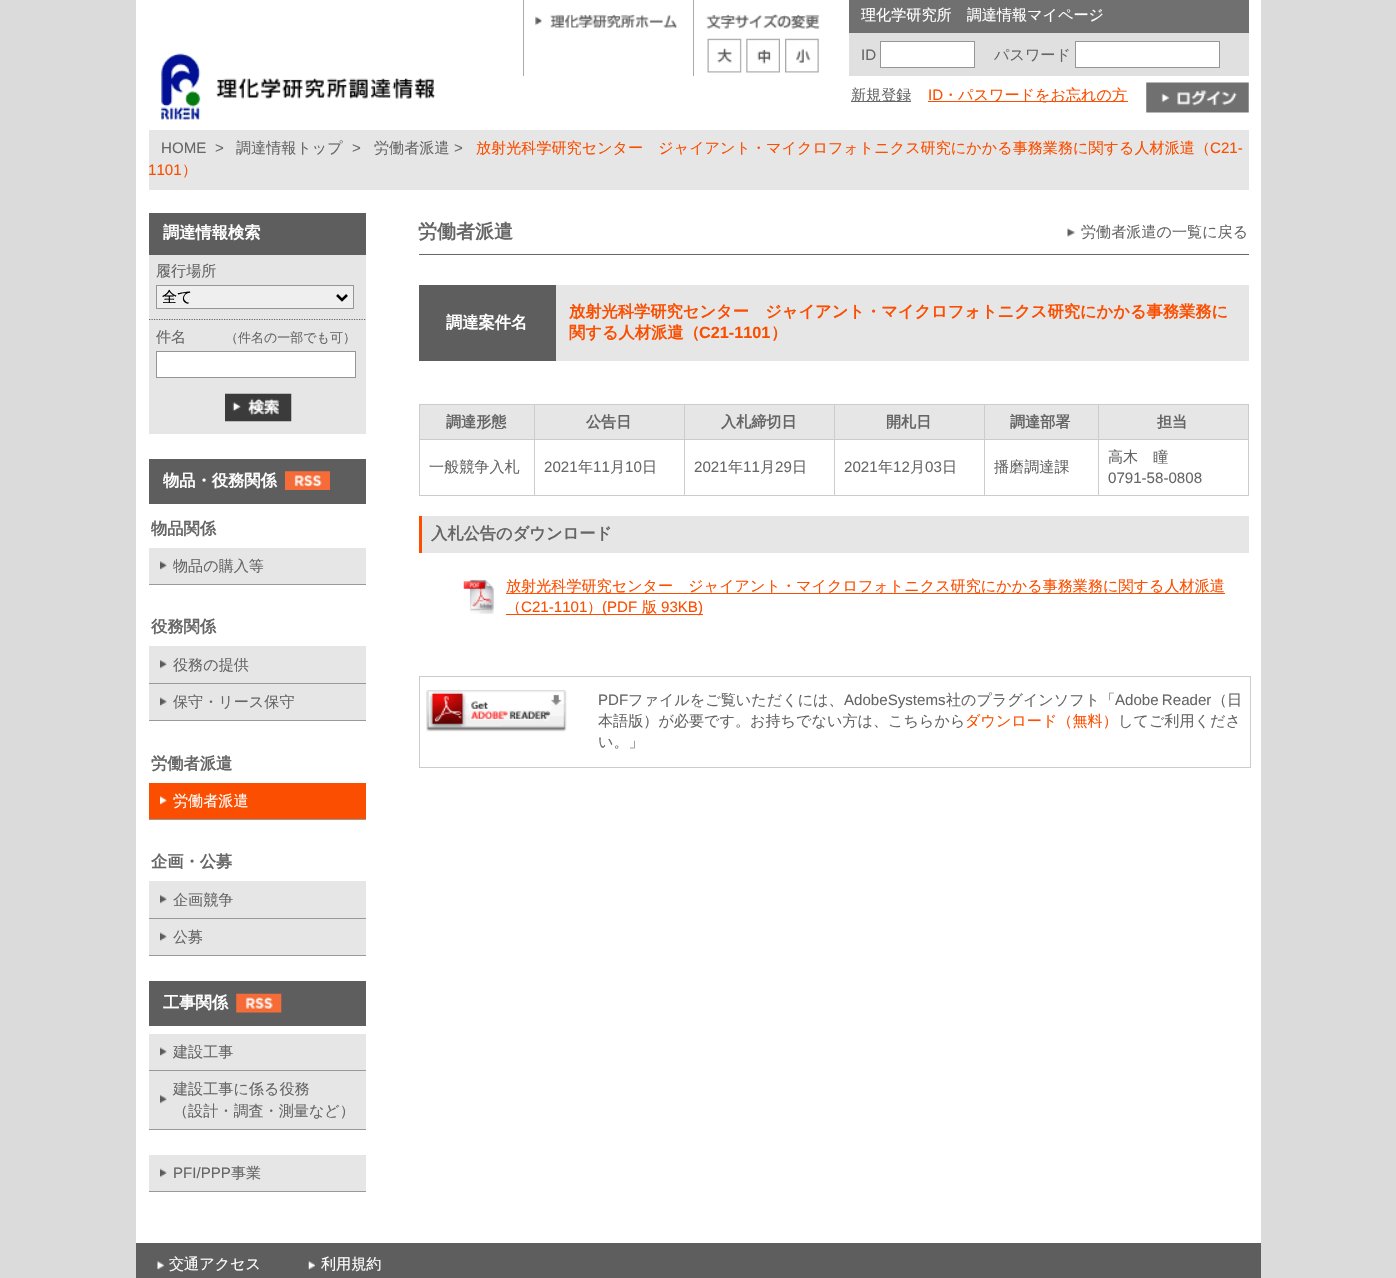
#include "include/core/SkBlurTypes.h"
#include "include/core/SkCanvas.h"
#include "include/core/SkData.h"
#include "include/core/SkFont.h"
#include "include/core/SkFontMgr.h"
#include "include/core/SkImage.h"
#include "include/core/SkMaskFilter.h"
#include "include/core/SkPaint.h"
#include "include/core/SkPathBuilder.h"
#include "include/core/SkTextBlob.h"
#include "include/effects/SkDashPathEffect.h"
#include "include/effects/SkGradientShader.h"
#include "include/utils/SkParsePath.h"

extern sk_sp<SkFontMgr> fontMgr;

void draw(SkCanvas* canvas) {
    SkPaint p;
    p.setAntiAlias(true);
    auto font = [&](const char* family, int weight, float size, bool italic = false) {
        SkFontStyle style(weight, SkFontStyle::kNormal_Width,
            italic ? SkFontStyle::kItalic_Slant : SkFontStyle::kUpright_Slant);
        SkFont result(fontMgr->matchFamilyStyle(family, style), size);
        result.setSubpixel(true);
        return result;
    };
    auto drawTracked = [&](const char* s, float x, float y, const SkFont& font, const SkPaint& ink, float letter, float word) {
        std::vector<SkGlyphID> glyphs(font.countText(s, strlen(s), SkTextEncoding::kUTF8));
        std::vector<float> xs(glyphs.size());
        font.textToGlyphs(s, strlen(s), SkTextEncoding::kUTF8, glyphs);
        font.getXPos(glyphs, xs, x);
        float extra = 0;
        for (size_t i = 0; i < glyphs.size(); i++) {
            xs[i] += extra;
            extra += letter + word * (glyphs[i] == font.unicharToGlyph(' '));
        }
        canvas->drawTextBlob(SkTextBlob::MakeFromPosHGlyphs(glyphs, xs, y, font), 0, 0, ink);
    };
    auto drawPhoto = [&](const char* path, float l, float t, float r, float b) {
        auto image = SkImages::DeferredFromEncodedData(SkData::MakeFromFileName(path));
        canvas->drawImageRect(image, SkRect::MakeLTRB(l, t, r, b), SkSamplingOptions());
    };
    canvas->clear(0xFFDBDBDB);
    p.setColor(0xFFFFFFFF);
    canvas->drawRect(SkRect::MakeLTRB(136, 0, 1261, 1243), p);
    drawPhoto("media/1.png", 161, 53, 435, 120);
    p.setColor(0xFFABABAB);
    canvas->drawRect(SkRect::MakeLTRB(523, 0, 524, 76), p);
    drawPhoto("media/2.png", 535, 14, 678, 28);
    canvas->drawRect(SkRect::MakeLTRB(693, 0, 694, 76), p);
    drawPhoto("media/3.png", 706, 13, 820, 29);
    drawPhoto("media/4.png", 707, 38, 742, 73);
    drawPhoto("media/5.png", 746, 38, 780, 73);
    drawPhoto("media/6.png", 785, 38, 819, 73);
    p.setColor(0xFF707070);
    canvas->drawRect(SkRect::MakeLTRB(849, 0, 1249, 33), p);
    auto font1 = font("WenQuanYi Zen Hei", 500, 15.1f);
    p.setColor(0xFFFFFFFF);
    canvas->drawString("理化学研究所　調達情報マイページ", 861, 20, font1, p);
    p.setColor(0xFFE0E0E0);
    canvas->drawRect(SkRect::MakeLTRB(849, 33, 1249, 76), p);
    auto font2 = font("Liberation Sans", 400, 15.1f);
    p.setColor(0xFF666666);
    canvas->drawString("ID", 861, 60, font2, p);
    p.setColor(0xFFFFFFFF);
    canvas->drawRect(SkRect::MakeLTRB(880.5f, 41.5f, 974.5f, 67.5f), p);
    p.setStyle(SkPaint::kStroke_Style);
    p.setStrokeWidth(1);
    p.setColor(0xFF969696);
    canvas->drawRect(SkRect::MakeLTRB(880.5f, 41.5f, 974.5f, 67.5f), p);
    p.setStyle(SkPaint::kFill_Style);
    p.setColor(0xFF666666);
    canvas->drawString("パスワード", 994, 60, font1, p);
    p.setColor(0xFFFFFFFF);
    canvas->drawRect(SkRect::MakeLTRB(1075.5f, 41.5f, 1219.5f, 67.5f), p);
    p.setStyle(SkPaint::kStroke_Style);
    p.setColor(0xFF969696);
    canvas->drawRect(SkRect::MakeLTRB(1075.5f, 41.5f, 1219.5f, 67.5f), p);
    p.setStyle(SkPaint::kFill_Style);
    p.setColor(0xFF666666);
    canvas->drawRect(SkRect::MakeLTRB(851, 101, 911, 102), p);
    canvas->drawString("新規登録", 851, 100, font1, p);
    p.setColor(0xFFFB4E00);
    canvas->drawString("ID", 928, 100, font2, p);
    canvas->drawRect(SkRect::MakeLTRB(928, 101, 1128, 102), p);
    canvas->drawString("・パスワードをお忘れの方", 943, 100, font1, p);
    drawPhoto("media/7.png", 1146, 82, 1249, 113);
    p.setColor(0xFFE6E6E6);
    canvas->drawRect(SkRect::MakeLTRB(149, 130, 1249, 190), p);
    p.setColor(0xFF666666);
    canvas->drawString("HOME", 161, 153, font2, p);
    canvas->drawString(">", 215, 153, font2, p);
    canvas->drawString("調達情報トップ", 236, 153, font1, p);
    canvas->drawString(">", 352, 153, font2, p);
    canvas->drawString("労働者派遣", 374, 153, font1, p);
    canvas->drawString(">", 454, 153, font2, p);
    p.setColor(0xFFFB4E00);
    canvas->drawString("放射光科学研究センター　ジャイアント・マイクロフォトニクス研究にかかる事務業務に関する人材派遣（", 476, 153, font1, p);
    canvas->drawString("C21-", 1210, 153, font2, p);
    canvas->drawString("1101", 148, 175, font2, p);
    canvas->drawString("）", 182, 175, font1, p);
    p.setColor(0xFF5E5E5E);
    canvas->drawRect(SkRect::MakeLTRB(149, 213, 366, 255), p);
    auto font3 = font("WenQuanYi Zen Hei", 700, 16.25f);
    p.setColor(0xFFFFFFFF);
    canvas->drawString("調達情報検索", 163, 238, font3, p);
    p.setColor(0xFFE6E6E6);
    canvas->drawRect(SkRect::MakeLTRB(149, 255, 366, 434), p);
    p.setStyle(SkPaint::kStroke_Style);
    p.setStrokeWidth(1.2f);
    p.setColor(0xFF666666);
    p.setPathEffect(SkDashPathEffect::Make({{1.25f, 1.25f}}, 0));
    canvas->drawPath(SkPathBuilder().moveTo(149, 319.5f).lineTo(366, 319.5f).detach(), p);
    p.setPathEffect(nullptr);
    p.setStyle(SkPaint::kFill_Style);
    canvas->drawString("履行場所", 156, 276, font1, p);
    p.setColor(0xFFEFEFEF);
    canvas->drawRect(SkRect::MakeLTRB(156.5f, 285.5f, 353.5f, 308.5f), p);
    p.setStyle(SkPaint::kStroke_Style);
    p.setStrokeWidth(1);
    p.setColor(0xFF969696);
    canvas->drawRect(SkRect::MakeLTRB(156.5f, 285.5f, 353.5f, 308.5f), p);
    p.setStrokeWidth(2.5f);
    p.setColor(0xFF000000);
    canvas->drawPath(SkPathBuilder().moveTo(337, 295).lineTo(342, 300).lineTo(347, 295).detach(), p);
    p.setStyle(SkPaint::kFill_Style);
    canvas->drawString("全て", 162, 302, font1, p);
    p.setColor(0xFF666666);
    canvas->drawString("件名", 156, 342, font1, p);
    auto font4 = font("WenQuanYi Zen Hei", 500, 13);
    canvas->drawString("（件名の一部でも可）", 225, 342, font4, p);
    p.setColor(0xFFFFFFFF);
    canvas->drawRect(SkRect::MakeLTRB(156.5f, 351.5f, 355.5f, 377.5f), p);
    p.setStyle(SkPaint::kStroke_Style);
    p.setStrokeWidth(1);
    p.setColor(0xFF969696);
    canvas->drawRect(SkRect::MakeLTRB(156.5f, 351.5f, 355.5f, 377.5f), p);
    drawPhoto("media/8.png", 225, 393, 292, 422);
    p.setStyle(SkPaint::kFill_Style);
    p.setColor(0xFF5E5E5E);
    canvas->drawRect(SkRect::MakeLTRB(149, 459, 366, 504), p);
    p.setColor(0xFFFFFFFF);
    canvas->drawString("物品・役務関係", 163, 486, font3, p);
    drawPhoto("media/9.png", 285, 471, 330, 490);
    p.setColor(0xFF666666);
    canvas->drawString("物品関係", 151, 534, font3, p);
    p.setColor(0xFF999999);
    canvas->drawRect(SkRect::MakeLTRB(149, 584, 366, 585), p);
    p.setColor(0xFFE6E6E6);
    canvas->drawRect(SkRect::MakeLTRB(149, 548, 366, 584), p);
    drawPhoto("media/10.png", 160, 561, 167, 570);
    p.setColor(0xFF666666);
    canvas->drawString("物品の購入等", 173, 571, font1, p);
    canvas->drawString("役務関係", 151, 632, font3, p);
    p.setColor(0xFF999999);
    canvas->drawRect(SkRect::MakeLTRB(149, 683, 366, 684), p);
    p.setColor(0xFFE6E6E6);
    canvas->drawRect(SkRect::MakeLTRB(149, 646, 366, 683), p);
    drawPhoto("media/11.png", 160, 660, 167, 669);
    p.setColor(0xFF666666);
    canvas->drawString("役務の提供", 173, 670, font1, p);
    p.setColor(0xFF999999);
    canvas->drawRect(SkRect::MakeLTRB(149, 720, 366, 721), p);
    p.setColor(0xFFE6E6E6);
    canvas->drawRect(SkRect::MakeLTRB(149, 684, 366, 720), p);
    drawPhoto("media/12.png", 160, 697, 167, 707);
    p.setColor(0xFF666666);
    canvas->drawString("保守・リース保守", 173, 707, font1, p);
    canvas->drawString("労働者派遣", 151, 769, font3, p);
    p.setColor(0xFF999999);
    canvas->drawRect(SkRect::MakeLTRB(149, 819, 366, 820), p);
    p.setColor(0xFFFB4E00);
    canvas->drawRect(SkRect::MakeLTRB(149, 783, 366, 819), p);
    drawPhoto("media/13.png", 160, 796, 167, 805);
    p.setColor(0xFFFFFFFF);
    canvas->drawString("労働者派遣", 173, 806, font1, p);
    p.setColor(0xFF666666);
    canvas->drawString("企画・公募", 151, 867, font3, p);
    p.setColor(0xFF999999);
    canvas->drawRect(SkRect::MakeLTRB(149, 918, 366, 919), p);
    p.setColor(0xFFE6E6E6);
    canvas->drawRect(SkRect::MakeLTRB(149, 881, 366, 918), p);
    drawPhoto("media/11.png", 160, 895, 167, 904);
    p.setColor(0xFF666666);
    canvas->drawString("企画競争", 173, 905, font1, p);
    p.setColor(0xFF999999);
    canvas->drawRect(SkRect::MakeLTRB(149, 955, 366, 956), p);
    p.setColor(0xFFE6E6E6);
    canvas->drawRect(SkRect::MakeLTRB(149, 919, 366, 955), p);
    drawPhoto("media/12.png", 160, 932, 167, 942);
    p.setColor(0xFF666666);
    canvas->drawString("公募", 173, 942, font1, p);
    p.setColor(0xFF5E5E5E);
    canvas->drawRect(SkRect::MakeLTRB(149, 981, 366, 1026), p);
    p.setColor(0xFFFFFFFF);
    canvas->drawString("工事関係", 163, 1008, font3, p);
    drawPhoto("media/14.png", 236, 993, 282, 1013);
    p.setColor(0xFF999999);
    canvas->drawRect(SkRect::MakeLTRB(149, 1070, 366, 1071), p);
    p.setColor(0xFFE6E6E6);
    canvas->drawRect(SkRect::MakeLTRB(149, 1034, 366, 1070), p);
    drawPhoto("media/12.png", 160, 1047, 167, 1057);
    p.setColor(0xFF666666);
    canvas->drawString("建設工事", 173, 1057, font1, p);
    p.setColor(0xFF999999);
    canvas->drawRect(SkRect::MakeLTRB(149, 1129, 366, 1130), p);
    p.setColor(0xFFE6E6E6);
    canvas->drawRect(SkRect::MakeLTRB(149, 1071, 366, 1129), p);
    drawPhoto("media/11.png", 160, 1095, 167, 1104);
    p.setColor(0xFF666666);
    canvas->drawString("建設工事に係る役務", 173, 1094, font1, p);
    canvas->drawString("（設計・調査・測量など）", 173, 1116, font1, p);
    p.setColor(0xFF999999);
    canvas->drawRect(SkRect::MakeLTRB(149, 1191, 366, 1192), p);
    p.setColor(0xFFE6E6E6);
    canvas->drawRect(SkRect::MakeLTRB(149, 1155, 366, 1191), p);
    drawPhoto("media/15.png", 160, 1168, 167, 1178);
    p.setColor(0xFF666666);
    canvas->drawString("PFI/PPP", 173, 1178, font2, p);
    canvas->drawString("事業", 231, 1178, font1, p);
    canvas->drawRect(SkRect::MakeLTRB(419, 254, 1249, 255), p);
    auto font5 = font("WenQuanYi Zen Hei", 700, 19);
    canvas->drawString("労働者派遣", 418, 238, font5, p);
    drawPhoto("media/16.png", 1067, 228, 1076, 237);
    canvas->drawString("労働者派遣の一覧に戻る", 1081, 237, font1, p);
    p.setColor(0xFF5E5E5E);
    canvas->drawRect(SkRect::MakeLTRB(419, 285, 556, 361), p);
    p.setColor(0xFFFFFFFF);
    canvas->drawString("調達案件名", 446, 328, font3, p);
    p.setColor(0xFFE6E6E6);
    canvas->drawRect(SkRect::MakeLTRB(556, 285, 1249, 361), p);
    p.setColor(0xFFFB4E00);
    canvas->drawString("放射光科学研究センター　ジャイアント・マイクロフォトニクス研究にかかる事務業務に", 569, 317, font3, p);
    canvas->drawString("関する人材派遣（", 569, 338, font3, p);
    auto font6 = font("Liberation Sans", 700, 16.25f);
    canvas->drawString("C21-1101", 699, 338, font6, p);
    canvas->drawString("）", 771, 338, font3, p);
    {
        const struct { float l, t, r, b; SkColor color; } items[] = {
            {419, 404, 1249, 405, 0xFFCCCCCC},
            {1248, 404, 1249, 496, 0xFFCCCCCC},
            {419, 495, 1249, 496, 0xFFCCCCCC},
            {419, 404, 420, 496, 0xFFCCCCCC},
            {420, 405, 534, 439, 0xFFE6E6E6},
        };
        for (auto [l, t, r, b, color] : items) {
            p.setColor(color);
            canvas->drawRect(SkRect::MakeLTRB(l, t, r, b), p);
        }
    }
    auto font7 = font("WenQuanYi Zen Hei", 700, 15.1f);
    p.setColor(0xFF666666);
    canvas->drawString("調達形態", 446, 427, font7, p);
    {
        const struct { float l, t, r, b; SkColor color; } items[] = {
            {535, 405, 684, 439, 0xFFE6E6E6},
            {1098, 439, 1249, 440, 0xFFCCCCCC},
            {1098, 439, 1099, 496, 0xFFCCCCCC},
            {984, 439, 1099, 440, 0xFFCCCCCC},
            {984, 439, 985, 496, 0xFFCCCCCC},
            {834, 439, 985, 440, 0xFFCCCCCC},
            {834, 439, 835, 496, 0xFFCCCCCC},
            {684, 439, 835, 440, 0xFFCCCCCC},
            {684, 439, 685, 496, 0xFFCCCCCC},
            {534, 439, 685, 440, 0xFFCCCCCC},
            {534, 439, 535, 496, 0xFFCCCCCC},
            {419, 439, 535, 440, 0xFFCCCCCC},
            {534, 404, 535, 440, 0xFFCCCCCC},
        };
        for (auto [l, t, r, b, color] : items) {
            p.setColor(color);
            canvas->drawRect(SkRect::MakeLTRB(l, t, r, b), p);
        }
    }
    p.setColor(0xFF666666);
    canvas->drawString("公告日", 586, 427, font7, p);
    p.setColor(0xFFE6E6E6);
    canvas->drawRect(SkRect::MakeLTRB(685, 405, 834, 439), p);
    p.setColor(0xFFCCCCCC);
    canvas->drawRect(SkRect::MakeLTRB(684, 404, 685, 440), p);
    p.setColor(0xFF666666);
    canvas->drawString("入札締切日", 721, 427, font7, p);
    p.setColor(0xFFE6E6E6);
    canvas->drawRect(SkRect::MakeLTRB(835, 405, 984, 439), p);
    p.setColor(0xFFCCCCCC);
    canvas->drawRect(SkRect::MakeLTRB(834, 404, 835, 440), p);
    p.setColor(0xFF666666);
    canvas->drawString("開札日", 886, 427, font7, p);
    p.setColor(0xFFE6E6E6);
    canvas->drawRect(SkRect::MakeLTRB(985, 405, 1098, 439), p);
    p.setColor(0xFFCCCCCC);
    canvas->drawRect(SkRect::MakeLTRB(984, 404, 985, 440), p);
    p.setColor(0xFF666666);
    canvas->drawString("調達部署", 1010, 427, font7, p);
    p.setColor(0xFFE6E6E6);
    canvas->drawRect(SkRect::MakeLTRB(1099, 405, 1248, 439), p);
    p.setColor(0xFFCCCCCC);
    canvas->drawRect(SkRect::MakeLTRB(1098, 404, 1099, 440), p);
    p.setColor(0xFF666666);
    canvas->drawString("担当", 1157, 427, font7, p);
    canvas->drawString("一般競争入札", 429, 472, font1, p);
    canvas->drawString("2021", 544, 472, font2, p);
    canvas->drawString("年", 578, 472, font1, p);
    canvas->drawString("11", 593, 472, font2, p);
    canvas->drawString("月", 610, 472, font1, p);
    canvas->drawString("10", 625, 472, font2, p);
    canvas->drawString("日", 642, 472, font1, p);
    canvas->drawString("2021", 694, 472, font2, p);
    canvas->drawString("年", 728, 472, font1, p);
    canvas->drawString("11", 743, 472, font2, p);
    canvas->drawString("月", 760, 472, font1, p);
    canvas->drawString("29", 775, 472, font2, p);
    canvas->drawString("日", 792, 472, font1, p);
    canvas->drawString("2021", 844, 472, font2, p);
    canvas->drawString("年", 878, 472, font1, p);
    canvas->drawString("12", 893, 472, font2, p);
    canvas->drawString("月", 910, 472, font1, p);
    canvas->drawString("03", 925, 472, font2, p);
    {
        const struct { const char* s; float x, y; } items[] = {
            {"日", 942, 472},
            {"播磨調達課", 994, 472},
            {"高木　瞳", 1108, 462},
        };
        for (auto [s, x, y] : items) {
            canvas->drawString(s, x, y, font1, p);
        }
    }
    canvas->drawString("0791-58-0808", 1108, 483, font2, p);
    p.setColor(0xFFE6E6E6);
    canvas->drawRect(SkRect::MakeLTRB(422, 516, 1249, 553), p);
    p.setColor(0xFFFB4E00);
    canvas->drawRect(SkRect::MakeLTRB(419, 516, 422, 553), p);
    p.setColor(0xFF666666);
    canvas->drawString("入札公告のダウンロード", 431, 539, font3, p);
    drawPhoto("media/17.png", 463, 579, 494, 614);
    p.setColor(0xFFFB4E00);
    canvas->drawRect(SkRect::MakeLTRB(506, 593, 1225, 594), p);
    canvas->drawString("放射光科学研究センター　ジャイアント・マイクロフォトニクス研究にかかる事務業務に関する人材派遣", 506, 591, font1, p);
    canvas->drawRect(SkRect::MakeLTRB(506, 614, 703, 615), p);
    canvas->drawString("（", 506, 612, font1, p);
    canvas->drawString("C21-1101", 521, 612, font2, p);
    canvas->drawString("）", 587, 612, font1, p);
    canvas->drawString("(PDF", 602, 612, font2, p);
    canvas->drawString("版", 642, 612, font1, p);
    canvas->drawString("93KB)", 661, 612, font2, p);
    p.setStyle(SkPaint::kStroke_Style);
    p.setColor(0xFFCCCCCC);
    canvas->drawRect(SkRect::MakeLTRB(419.5f, 676.5f, 1250.5f, 767.5f), p);
    drawPhoto("media/18.png", 426, 690, 567, 732);
    p.setStyle(SkPaint::kFill_Style);
    p.setColor(0xFF666666);
    canvas->drawString("PDF", 598, 705, font2, p);
    canvas->drawString("ファイルをご覧いただくには、", 628, 705, font1, p);
    canvas->drawString("AdobeSystems", 844, 705, font2, p);
    canvas->drawString("社のプラグインソフト「", 946, 705, font1, p);
    drawTracked("Adobe Reader", 1115, 705, font2, p, 0, -1);
    canvas->drawString("（日", 1212, 705, font1, p);
    canvas->drawString("本語版）が必要です。お持ちでない方は、こちらから", 598, 726, font1, p);
    p.setColor(0xFFFB4E00);
    canvas->drawString("ダウンロード（無料）", 965, 726, font1, p);
    p.setColor(0xFF666666);
    canvas->drawString("してご利用くださ", 1118, 726, font1, p);
    canvas->drawString("い。」", 598, 747, font1, p);
    p.setColor(0xFF5E5E5E);
    canvas->drawRect(SkRect::MakeLTRB(136, 1243, 1261, 1278), p);
    drawPhoto("media/19.png", 157, 1261, 164, 1270);
    p.setColor(0xFFFFFFFF);
    canvas->drawString("交通アクセス", 169, 1269, font1, p);
    drawPhoto("media/20.png", 308, 1261, 315, 1270);
    canvas->drawString("利用規約", 321, 1269, font1, p);
}
